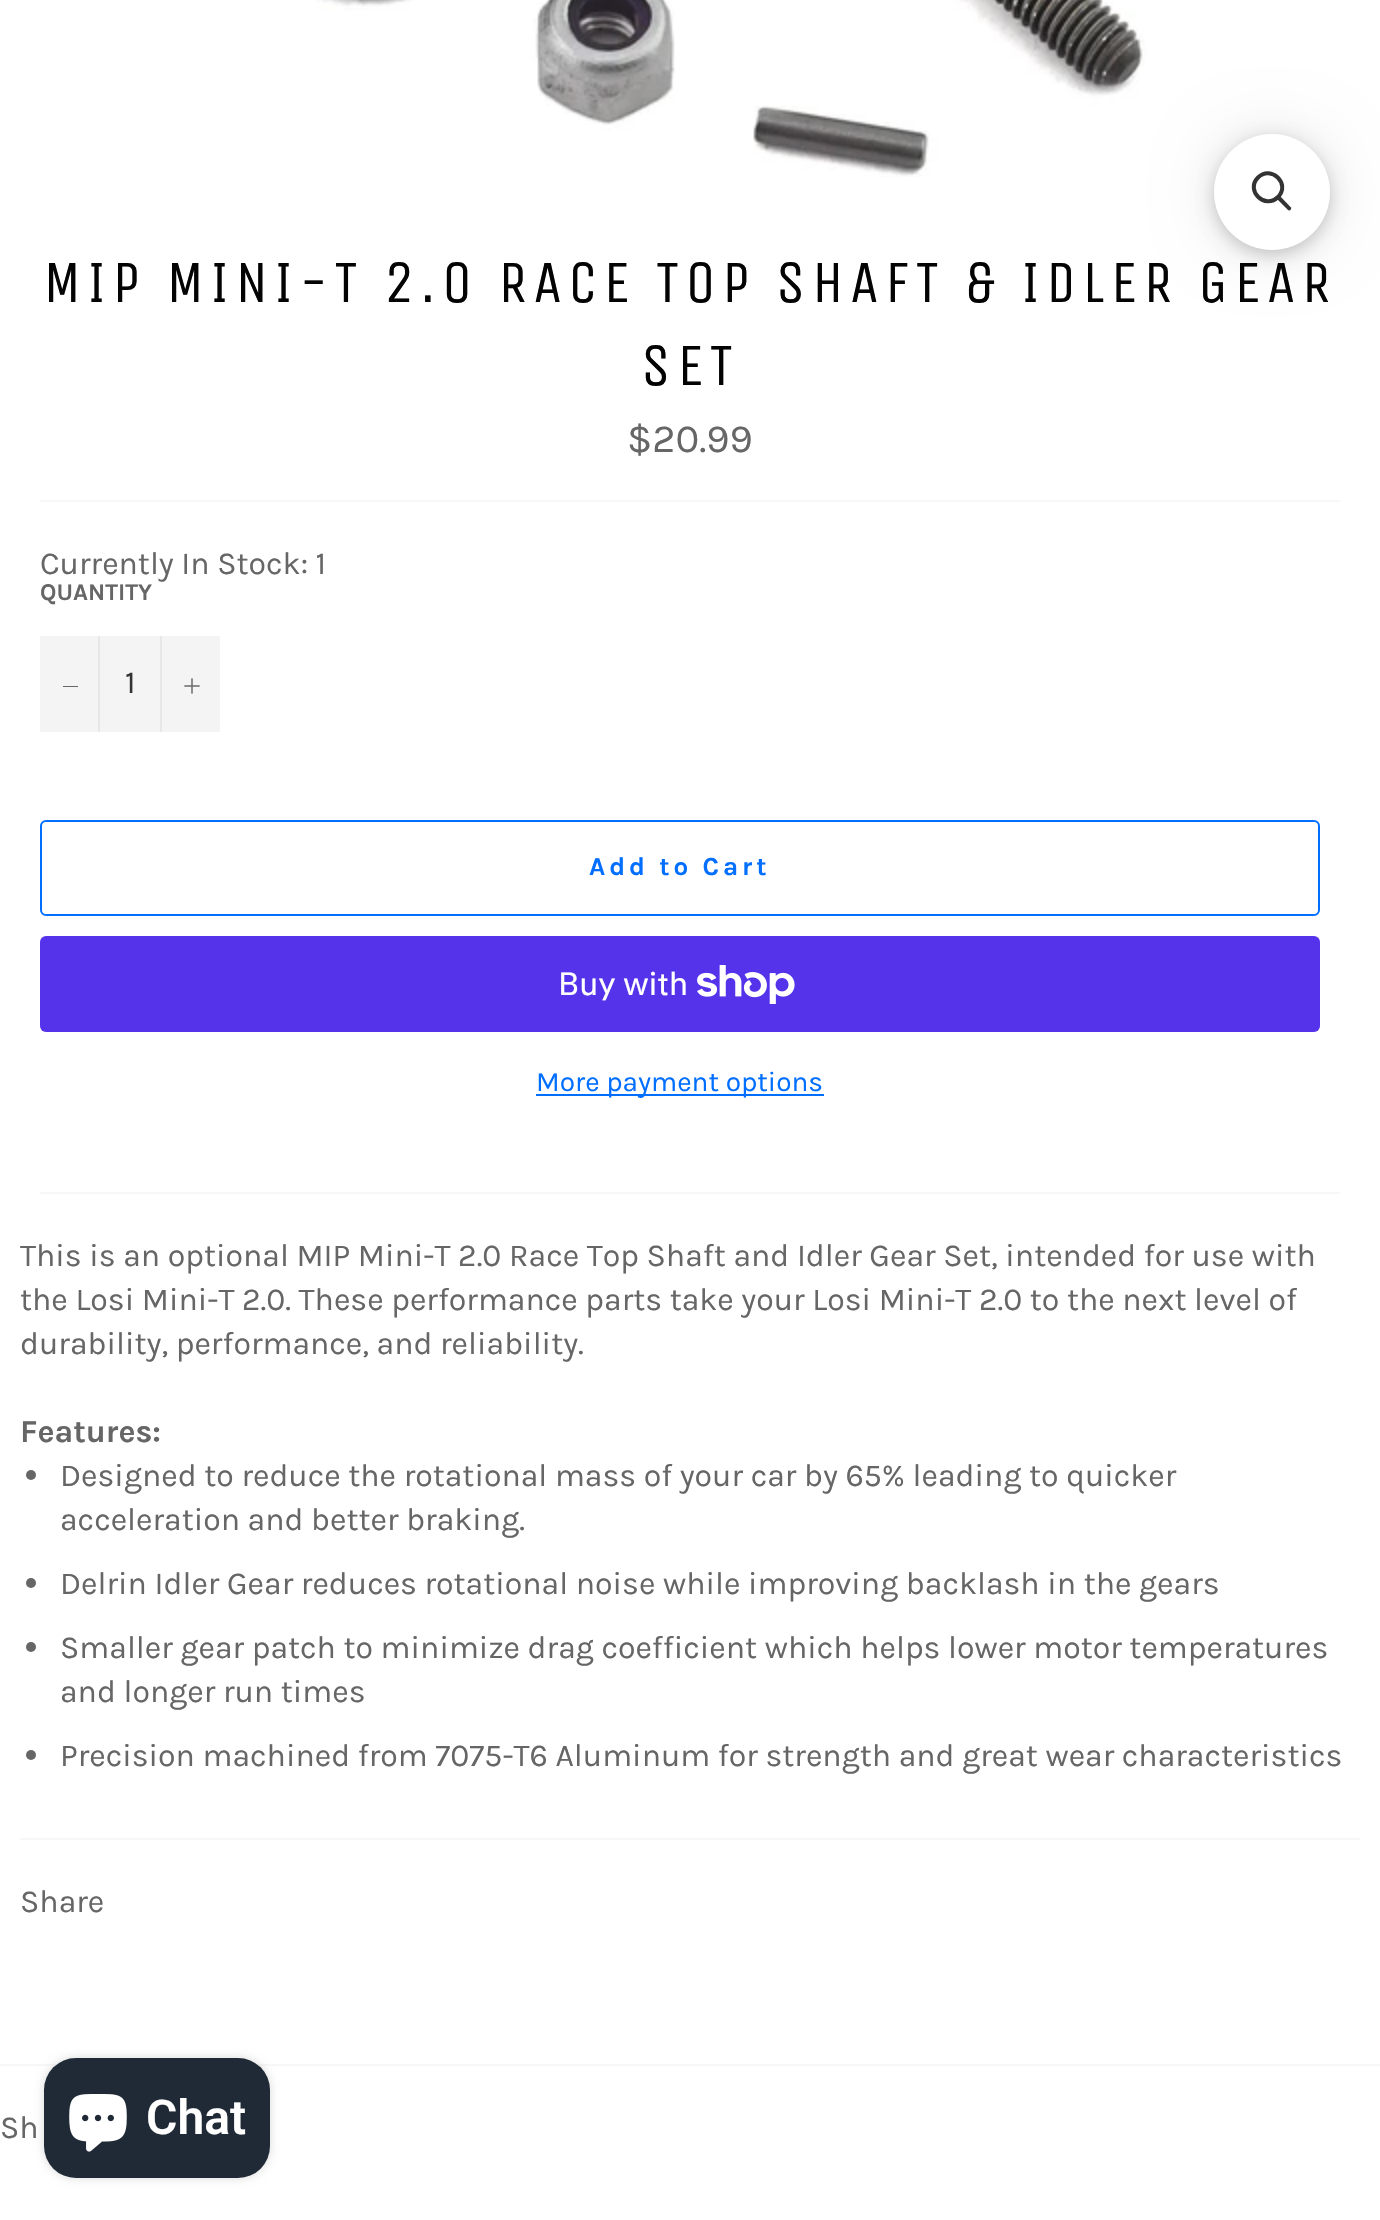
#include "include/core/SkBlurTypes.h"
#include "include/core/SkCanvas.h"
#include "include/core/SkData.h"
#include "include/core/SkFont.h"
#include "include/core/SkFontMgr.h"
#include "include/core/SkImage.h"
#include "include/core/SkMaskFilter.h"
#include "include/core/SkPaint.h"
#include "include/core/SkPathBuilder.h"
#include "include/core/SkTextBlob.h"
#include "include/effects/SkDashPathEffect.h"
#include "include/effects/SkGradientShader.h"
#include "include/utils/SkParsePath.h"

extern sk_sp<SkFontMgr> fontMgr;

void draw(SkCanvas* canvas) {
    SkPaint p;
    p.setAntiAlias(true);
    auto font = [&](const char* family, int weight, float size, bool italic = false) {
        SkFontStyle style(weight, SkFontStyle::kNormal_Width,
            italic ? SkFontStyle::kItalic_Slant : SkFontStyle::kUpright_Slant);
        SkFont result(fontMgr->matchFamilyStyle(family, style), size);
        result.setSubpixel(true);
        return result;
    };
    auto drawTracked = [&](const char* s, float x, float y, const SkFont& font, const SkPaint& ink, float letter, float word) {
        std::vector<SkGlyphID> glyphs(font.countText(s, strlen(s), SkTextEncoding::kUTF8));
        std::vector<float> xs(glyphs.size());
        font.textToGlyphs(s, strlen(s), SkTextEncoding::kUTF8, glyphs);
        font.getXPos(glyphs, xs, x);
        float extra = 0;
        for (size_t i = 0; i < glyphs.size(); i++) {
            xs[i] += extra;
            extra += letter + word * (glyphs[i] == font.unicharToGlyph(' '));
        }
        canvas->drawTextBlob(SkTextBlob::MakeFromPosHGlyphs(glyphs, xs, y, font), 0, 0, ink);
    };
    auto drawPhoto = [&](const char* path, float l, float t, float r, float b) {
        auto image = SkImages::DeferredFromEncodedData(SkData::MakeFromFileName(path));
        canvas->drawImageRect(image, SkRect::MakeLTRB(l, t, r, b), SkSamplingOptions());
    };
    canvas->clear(0xFFFFFFFF);
    p.setColor(0x0D000000);
    p.setMaskFilter(SkMaskFilter::MakeBlur(kNormal_SkBlurStyle, 8));
    canvas->drawRoundRect(SkRect::MakeLTRB(1214, 142, 1330, 258), 58, 58, p);
    p.setMaskFilter(nullptr);
    p.setColor(0x26000000);
    p.setMaskFilter(SkMaskFilter::MakeBlur(kNormal_SkBlurStyle, 8));
    canvas->drawRoundRect(SkRect::MakeLTRB(1214, 138, 1330, 254), 58, 58, p);
    p.setMaskFilter(nullptr);
    drawPhoto("media/1.png", 316, 0, 1146, 177);
    p.setColor(0x1A000000);
    p.setMaskFilter(SkMaskFilter::MakeBlur(kNormal_SkBlurStyle, 30));
    canvas->drawRoundRect(SkRect::MakeLTRB(1214, 134, 1330, 250), 58, 58, p);
    p.setMaskFilter(nullptr);
    p.setColor(0xFFFFFFFF);
    canvas->drawCircle(1272, 192, 58, p);
    p.setStyle(SkPaint::kStroke_Style);
    p.setStrokeWidth(4);
    p.setColor(0xFF333333);
    canvas->drawPath(SkPathBuilder().moveTo(1258, 177.5f).cubicTo(1271, 164.5f, 1291, 184, 1278, 197).cubicTo(1265, 210, 1245, 190.5f, 1258, 177.5f).close().detach(), p);
    p.setStyle(SkPaint::kFill_Style);
    canvas->drawPath(SkPathBuilder().moveTo(1276.5f, 198.5f).lineTo(1279.5f, 195.5f).lineTo(1291, 207.5f).cubicTo(1292, 209, 1289.5f, 211.5f, 1288, 210).close().detach(), p);
    auto font1 = font("Unica One", 400, 60);
    p.setColor(0xFF030303);
    drawTracked("MIP MINI-T 2.0 RACE TOP SHAFT & IDLER GEAR", 43, 302, font1, p, 6, 0);
    drawTracked("SET", 641, 385, font1, p, 6, 0);
    auto font2 = font("Karla", 400, 40);
    p.setColor(0xFF666666);
    canvas->drawString("$20.99", 627, 452, font2, p);
    p.setColor(0xFFF7F7F7);
    canvas->drawRect(SkRect::MakeLTRB(40, 500, 1340, 502), p);
    auto font3 = font("Karla", 400, 32);
    p.setColor(0xFF666666);
    canvas->drawString("Currently In Stock: 1", 40, 574, font3, p);
    auto font4 = font("Karla", 700, 24);
    canvas->drawString("QUANTITY", 40, 600, font4, p);
    {
        const struct { float l, t, r, b; SkColor color; } items[] = {
            {40, 636, 220, 732, 0xFFF4F4F4},
            {98, 636, 100, 732, 0xFFE7E7E7},
            {63, 686, 78, 687, 0xFF666666},
        };
        for (auto [l, t, r, b, color] : items) {
            p.setColor(color);
            canvas->drawRect(SkRect::MakeLTRB(l, t, r, b), p);
        }
    }
    p.setColor(0xFF333333);
    canvas->drawString("1", 125, 693, font3, p);
    p.setColor(0xFFE7E7E7);
    canvas->drawRect(SkRect::MakeLTRB(160, 636, 162, 732), p);
    drawPhoto("media/2.png", 184, 678, 200, 694);
    p.setStyle(SkPaint::kStroke_Style);
    p.setStrokeWidth(2);
    p.setColor(0xFF006EFF);
    canvas->drawRoundRect(SkRect::MakeLTRB(41, 821, 1319, 915), 5, 5, p);
    auto font5 = font("Karla", 700, 26);
    p.setStyle(SkPaint::kFill_Style);
    drawTracked("Add to Cart", 589, 875, font5, p, 3.9f, 0);
    p.setColor(0xFF5433EB);
    canvas->drawRoundRect(SkRect::MakeLTRB(40, 936, 1320, 1032), 6, 6, p);
    auto font6 = font("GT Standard", 400, 32);
    p.setColor(0xFFFFFFFF);
    canvas->drawString("Buy with", 558, 995, font6, p);
    drawPhoto("media/3.png", 697, 965, 795, 1004);
    p.setColor(0xFF006EFF);
    canvas->drawRect(SkRect::MakeLTRB(536, 1094, 824, 1096), p);
    auto font7 = font("Karla", 400, 28);
    canvas->drawString("More payment options", 536, 1091, font7, p);
    p.setColor(0xFFF7F7F7);
    canvas->drawRect(SkRect::MakeLTRB(40, 1192, 1340, 1194), p);
    p.setColor(0xFF666666);
    {
        const struct { const char* s; float x, y; } items[] = {
            {"This is an optional MIP Mini-T 2.0 Race Top Shaft and Idler Gear Set, intended for use with", 20, 1266},
            {"the Losi Mini-T 2.0. These performance parts take your Losi Mini-T 2.0 to the next level of", 20, 1310},
            {"durability, performance, and reliability.", 20, 1354},
        };
        for (auto [s, x, y] : items) {
            canvas->drawString(s, x, y, font3, p);
        }
    }
    auto font8 = font("Karla", 700, 32);
    canvas->drawString("Features:", 20, 1442, font8, p);
    canvas->drawCircle(31, 1475, 5, p);
    canvas->drawString("Designed to reduce the rotational mass of your car by 65% leading to quicker", 60, 1486, font3, p);
    canvas->drawString("acceleration and better braking.", 60, 1530, font3, p);
    canvas->drawCircle(31, 1583, 5, p);
    canvas->drawString("Delrin Idler Gear reduces rotational noise while improving backlash in the gears", 60, 1594, font3, p);
    canvas->drawCircle(31, 1647, 5, p);
    canvas->drawString("Smaller gear patch to minimize drag coefficient which helps lower motor temperatures", 60, 1658, font3, p);
    canvas->drawString("and longer run times", 60, 1702, font3, p);
    canvas->drawCircle(31, 1755, 5, p);
    canvas->drawString("Precision machined from 7075-T6 Aluminum for strength and great wear characteristics", 60, 1766, font3, p);
    p.setColor(0xFFF7F7F7);
    canvas->drawRect(SkRect::MakeLTRB(20, 1838, 1360, 1840), p);
    p.setColor(0xFF666666);
    canvas->drawString("Share", 20, 1912, font3, p);
    p.setColor(0xFFF7F7F7);
    canvas->drawRect(SkRect::MakeLTRB(0, 2064, 1380, 2066), p);
    p.setColor(0xFF666666);
    canvas->drawString("Sh", 0, 2138, font3, p);
    p.setColor(0x26000000);
    p.setMaskFilter(SkMaskFilter::MakeBlur(kNormal_SkBlurStyle, 5));
    canvas->drawRoundRect(SkRect::MakeLTRB(44, 2058, 270, 2178), 32, 32, p);
    p.setMaskFilter(nullptr);
    p.setColor(0xFF202A36);
    canvas->drawRoundRect(SkRect::MakeLTRB(44, 2058, 270, 2178), 32, 32, p);
    drawPhoto("media/4.png", 69, 2094, 127, 2152);
    auto font9 = font("Roboto", 600, 48);
    p.setColor(0xFFFFFFFF);
    canvas->drawString("Chat", 146, 2134, font9, p);
}
